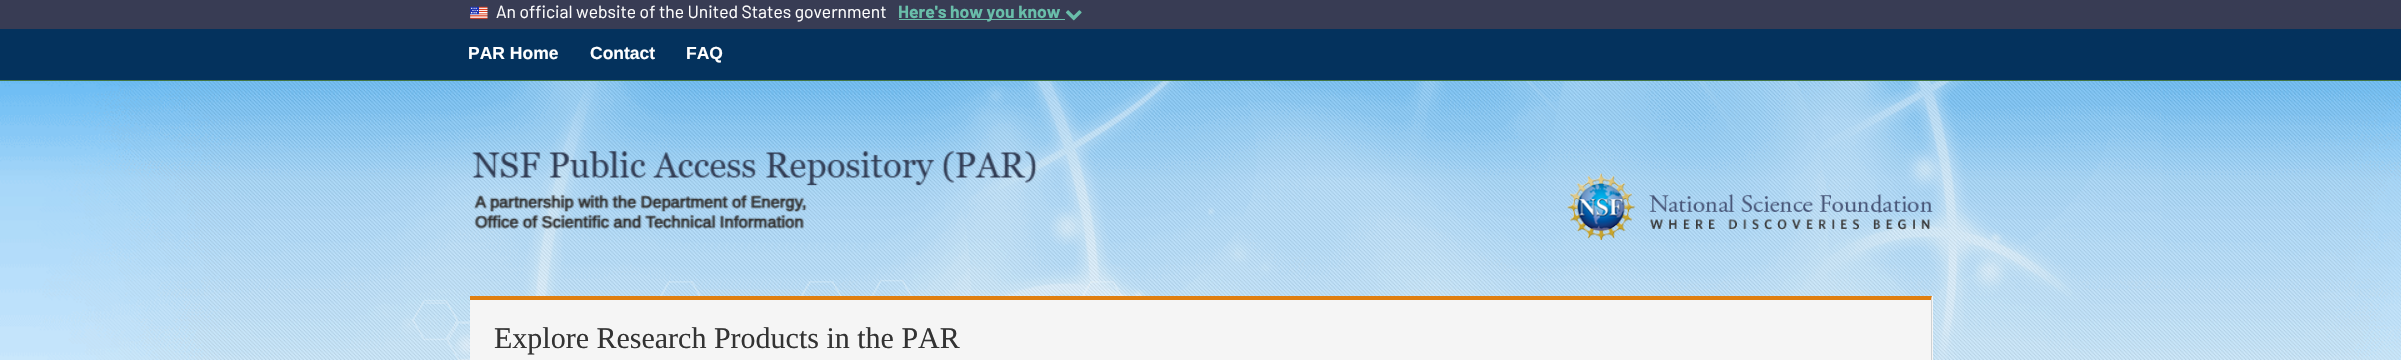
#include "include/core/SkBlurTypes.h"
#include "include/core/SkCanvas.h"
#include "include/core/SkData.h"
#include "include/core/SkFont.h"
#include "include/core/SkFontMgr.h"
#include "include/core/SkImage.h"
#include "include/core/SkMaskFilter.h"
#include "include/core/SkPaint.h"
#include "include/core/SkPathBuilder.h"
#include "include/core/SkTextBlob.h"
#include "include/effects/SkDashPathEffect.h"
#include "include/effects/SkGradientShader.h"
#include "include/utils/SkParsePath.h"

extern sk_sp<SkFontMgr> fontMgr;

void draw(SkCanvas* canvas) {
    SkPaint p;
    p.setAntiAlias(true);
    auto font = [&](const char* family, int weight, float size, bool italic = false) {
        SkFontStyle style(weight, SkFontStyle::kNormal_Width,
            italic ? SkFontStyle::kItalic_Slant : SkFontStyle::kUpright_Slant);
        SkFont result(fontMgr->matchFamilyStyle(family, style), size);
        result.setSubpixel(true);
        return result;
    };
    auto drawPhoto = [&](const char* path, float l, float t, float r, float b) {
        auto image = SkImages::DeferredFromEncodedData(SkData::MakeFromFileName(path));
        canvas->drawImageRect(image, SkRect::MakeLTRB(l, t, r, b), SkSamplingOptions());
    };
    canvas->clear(0xFFFFFFFF);
    drawPhoto("media/1.png", 0, 81, 2401, 360);
    p.setColor(0xFF383C54);
    canvas->drawRect(SkRect::MakeLTRB(0, 0, 2401, 29), p);
    drawPhoto("media/2.png", 470, 6, 488, 19);
    auto font1 = font("Barlow", 400, 17.5f);
    p.setColor(0xFFFFFFFF);
    canvas->drawString("An official website of the United States government", 496, 18, font1, p);
    p.setColor(0xFF69BEAA);
    canvas->drawRect(SkRect::MakeLTRB(899, 19, 1065, 20), p);
    auto font2 = font("Barlow", 700, 17.5f);
    canvas->drawString("Here's how you know", 898, 18, font2, p);
    drawPhoto("media/3.png", 1065, 10, 1082, 21);
    p.setColor(0xFF04325D);
    canvas->drawRect(SkRect::MakeLTRB(0, 29, 2401, 80), p);
    p.setColor(0xFF447744);
    canvas->drawRect(SkRect::MakeLTRB(0, 80, 2401, 81), p);
    auto font3 = font("Liberation Sans", 700, 17.5f);
    p.setColor(0xFFFFFFFF);
    {
        const struct { const char* s; float x, y; } items[] = {
            {"PAR Home", 468, 59},
            {"Contact", 590, 59},
            {"FAQ", 686, 59},
        };
        for (auto [s, x, y] : items) {
            canvas->drawString(s, x, y, font3, p);
        }
    }
    drawPhoto("media/4.png", 472, 151, 1037, 229);
    drawPhoto("media/5.png", 1567, 173, 1933, 240);
    p.setColor(0xFFF5F5F5);
    canvas->drawRect(SkRect::MakeLTRB(470, 296, 1933, 360), p);
    p.setColor(0xFFE07F11);
    canvas->drawPath(SkPathBuilder().moveTo(470, 296).lineTo(1932, 296).lineTo(1931, 300).lineTo(470, 300).close().detach(), p);
    p.setColor(0xFFCCD1D4);
    canvas->drawPath(SkPathBuilder().moveTo(1932, 296).lineTo(1932, 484).lineTo(1931, 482).lineTo(1931, 300).close().detach(), p);
    auto font4 = font("Liberation Serif", 400, 30);
    p.setColor(0xFF333333);
    canvas->drawString("Explore Research Products in the PAR", 494, 348, font4, p);
}
